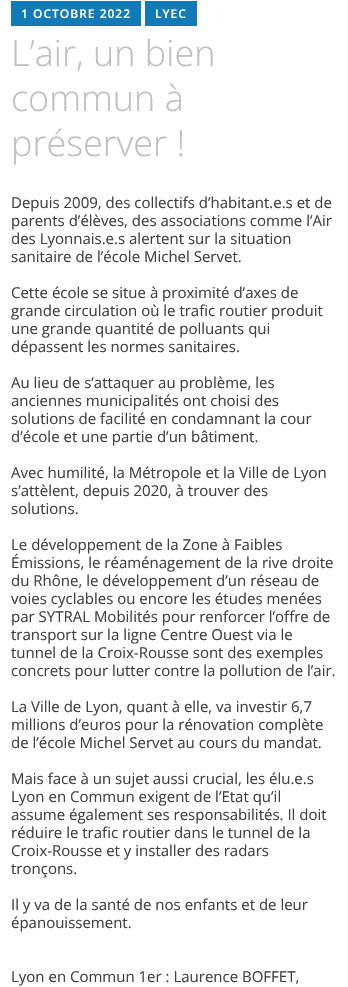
#include "include/core/SkBlurTypes.h"
#include "include/core/SkCanvas.h"
#include "include/core/SkData.h"
#include "include/core/SkFont.h"
#include "include/core/SkFontMgr.h"
#include "include/core/SkImage.h"
#include "include/core/SkMaskFilter.h"
#include "include/core/SkPaint.h"
#include "include/core/SkPathBuilder.h"
#include "include/core/SkTextBlob.h"
#include "include/effects/SkDashPathEffect.h"
#include "include/effects/SkGradientShader.h"
#include "include/utils/SkParsePath.h"

extern sk_sp<SkFontMgr> fontMgr;

void draw(SkCanvas* canvas) {
    SkPaint p;
    p.setAntiAlias(true);
    auto font = [&](const char* family, int weight, float size, bool italic = false) {
        SkFontStyle style(weight, SkFontStyle::kNormal_Width,
            italic ? SkFontStyle::kItalic_Slant : SkFontStyle::kUpright_Slant);
        SkFont result(fontMgr->matchFamilyStyle(family, style), size);
        result.setSubpixel(true);
        return result;
    };
    auto drawTracked = [&](const char* s, float x, float y, const SkFont& font, const SkPaint& ink, float letter, float word) {
        std::vector<SkGlyphID> glyphs(font.countText(s, strlen(s), SkTextEncoding::kUTF8));
        std::vector<float> xs(glyphs.size());
        font.textToGlyphs(s, strlen(s), SkTextEncoding::kUTF8, glyphs);
        font.getXPos(glyphs, xs, x);
        float extra = 0;
        for (size_t i = 0; i < glyphs.size(); i++) {
            xs[i] += extra;
            extra += letter + word * (glyphs[i] == font.unicharToGlyph(' '));
        }
        canvas->drawTextBlob(SkTextBlob::MakeFromPosHGlyphs(glyphs, xs, y, font), 0, 0, ink);
    };
    canvas->clear(0xFFFFFFFF);
    p.setColor(0xFF117BB8);
    canvas->drawRect(SkRect::MakeLTRB(11, 1, 141, 26), p);
    auto font1 = font("Open Sans", 600, 12);
    p.setColor(0xFFFFFFFF);
    drawTracked("1 OCTOBRE 2022", 21, 18, font1, p, 1, 0);
    p.setColor(0xFF117BB8);
    canvas->drawRect(SkRect::MakeLTRB(145, 1, 197, 26), p);
    p.setColor(0xFFFFFFFF);
    drawTracked("LYEC", 155, 18, font1, p, 1, 0);
    auto font2 = font("Open Sans", 300, 36);
    p.setColor(0xFFC0C0C0);
    {
        const struct { const char* s; float x, y; } items[] = {
            {"L’air, un bien", 11, 66},
            {"commun à", 11, 111},
            {"préserver !", 11, 156},
        };
        for (auto [s, x, y] : items) {
            canvas->drawString(s, x, y, font2, p);
        }
    }
    auto font3 = font("Open Sans", 400, 15);
    p.setColor(0xFF404040);
    {
        const struct { const char* s; float x, y; } items[] = {
            {"Depuis 2009, des collectifs d’habitant.e.s et de", 11, 208},
            {"parents d’élèves, des associations comme l’Air", 11, 226},
            {"des Lyonnais.e.s alertent sur la situation", 11, 244},
            {"sanitaire de l’école Michel Servet.", 11, 262},
            {"Cette école se situe à proximité d’axes de", 11, 298},
            {"grande circulation où le trafic routier produit", 11, 316},
            {"une grande quantité de polluants qui", 11, 334},
            {"dépassent les normes sanitaires.", 11, 352},
            {"Au lieu de s’attaquer au problème, les", 11, 388},
            {"anciennes municipalités ont choisi des", 11, 406},
            {"solutions de facilité en condamnant la cour", 11, 424},
            {"d’école et une partie d’un bâtiment.", 11, 442},
            {"Avec humilité, la Métropole et la Ville de Lyon", 11, 478},
            {"s’attèlent, depuis 2020, à trouver des", 11, 496},
            {"solutions.", 11, 514},
            {"Le développement de la Zone à Faibles", 11, 550},
            {"Émissions, le réaménagement de la rive droite", 11, 568},
            {"du Rhône, le développement d’un réseau de", 11, 586},
            {"voies cyclables ou encore les études menées", 11, 604},
            {"par SYTRAL Mobilités pour renforcer l’offre de", 11, 622},
            {"transport sur la ligne Centre Ouest via le", 11, 640},
            {"tunnel de la Croix-Rousse sont des exemples", 11, 658},
            {"concrets pour lutter contre la pollution de l’air.", 11, 676},
            {"La Ville de Lyon, quant à elle, va investir 6,7", 11, 712},
            {"millions d’euros pour la rénovation complète", 11, 730},
            {"de l’école Michel Servet au cours du mandat.", 11, 748},
            {"Mais face à un sujet aussi crucial, les élu.e.s", 11, 784},
            {"Lyon en Commun exigent de l’Etat qu’il", 11, 802},
            {"assume également ses responsabilités. Il doit", 11, 820},
            {"réduire le trafic routier dans le tunnel de la", 11, 838},
            {"Croix-Rousse et y installer des radars", 11, 856},
            {"tronçons.", 11, 874},
            {"Il y va de la santé de nos enfants et de leur", 11, 910},
            {"épanouissement.", 11, 928},
            {"Lyon en Commun 1er : Laurence BOFFET,", 11, 982},
        };
        for (auto [s, x, y] : items) {
            canvas->drawString(s, x, y, font3, p);
        }
    }
}
